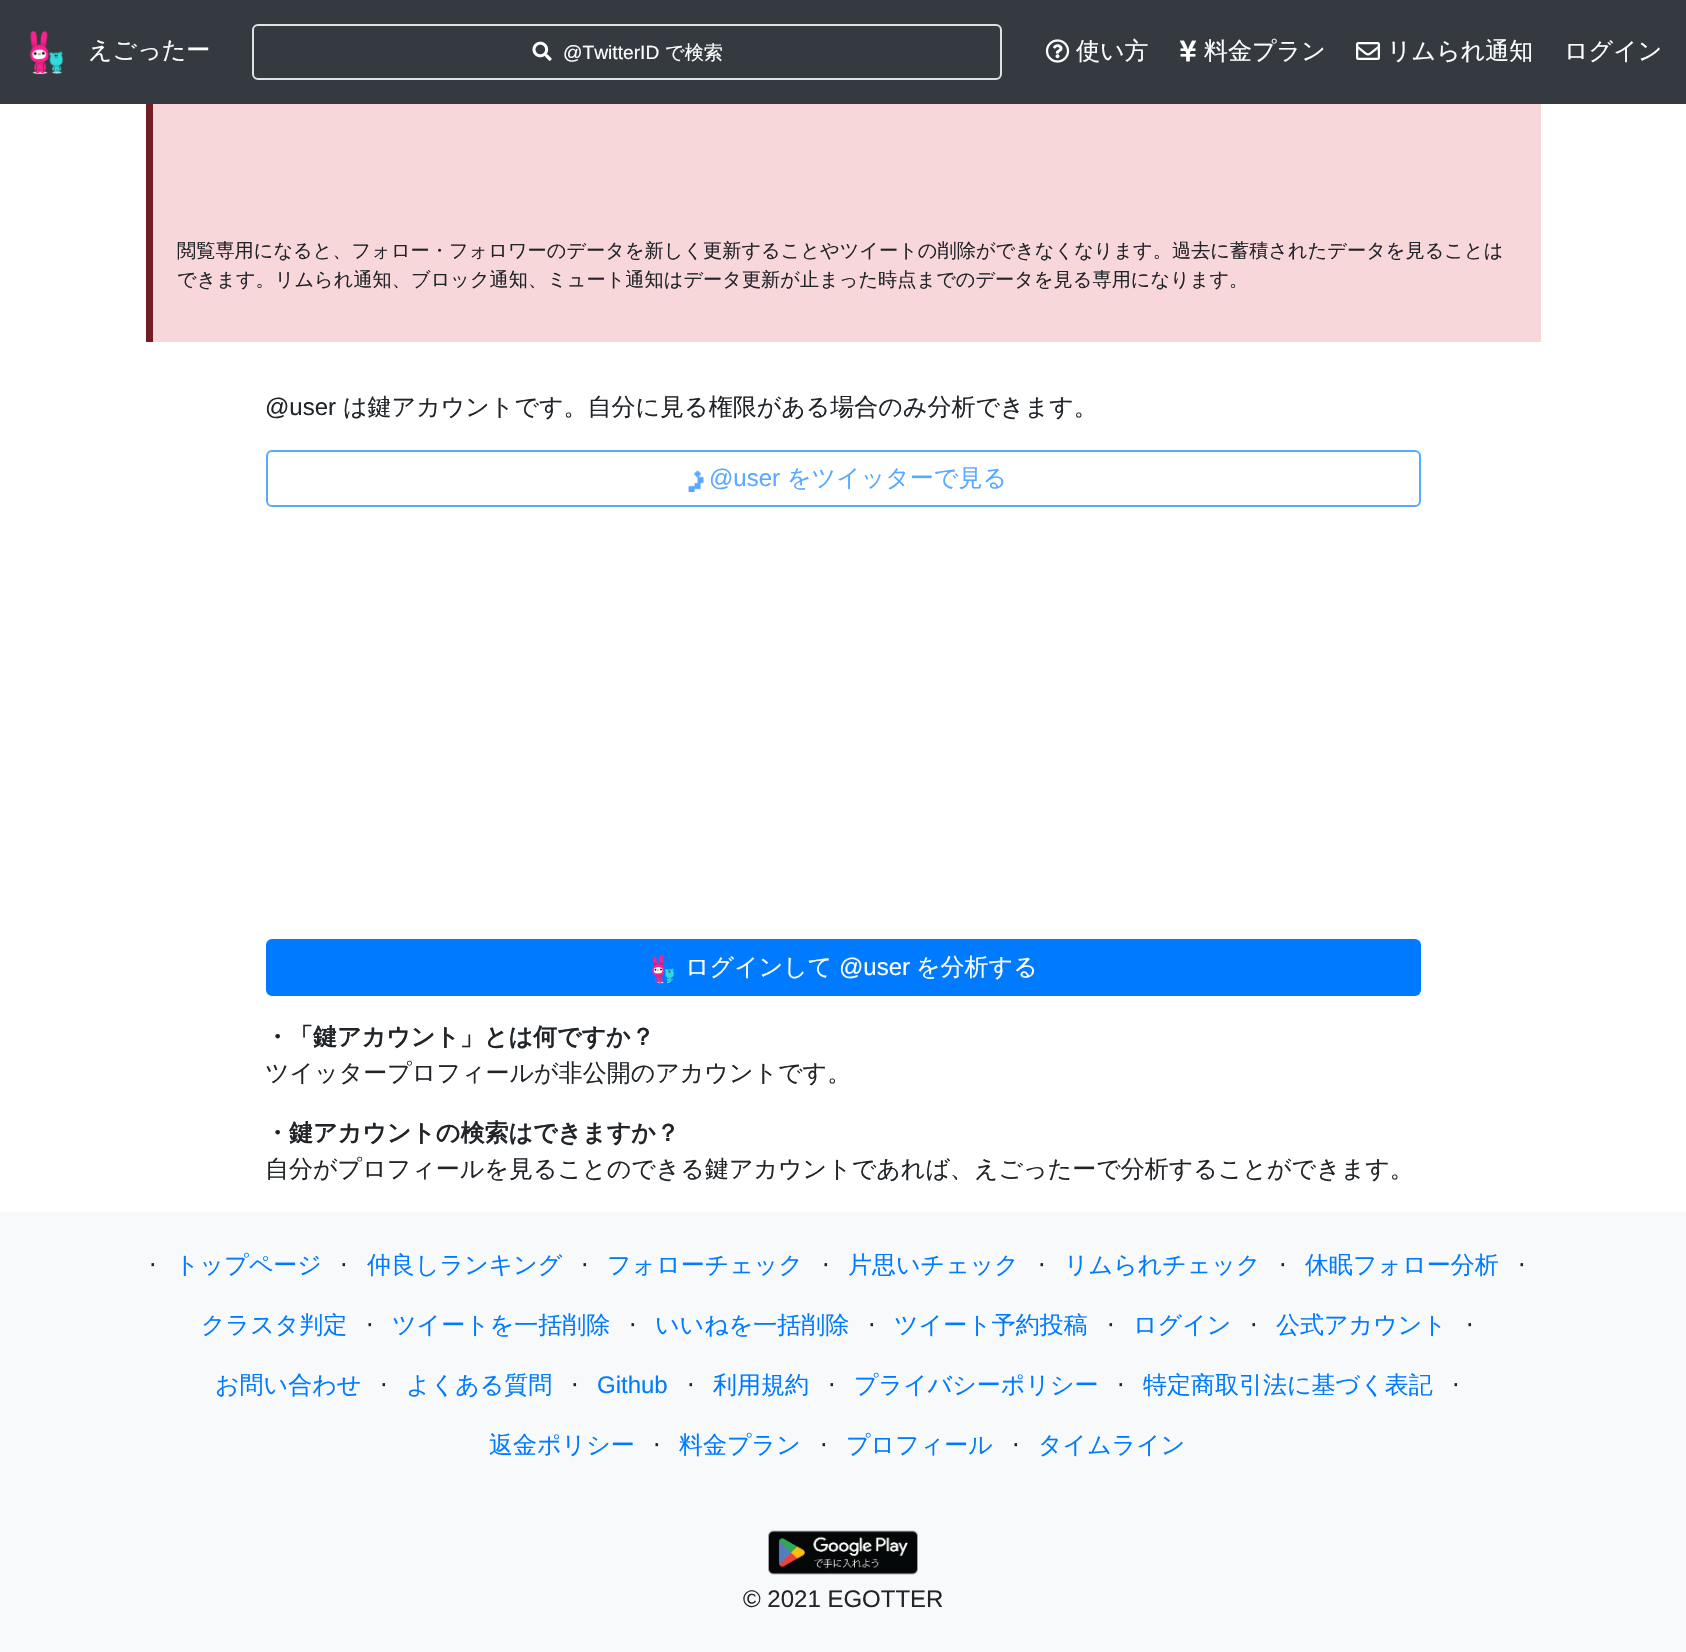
#include "include/core/SkBlurTypes.h"
#include "include/core/SkCanvas.h"
#include "include/core/SkData.h"
#include "include/core/SkFont.h"
#include "include/core/SkFontMgr.h"
#include "include/core/SkImage.h"
#include "include/core/SkMaskFilter.h"
#include "include/core/SkPaint.h"
#include "include/core/SkPathBuilder.h"
#include "include/core/SkTextBlob.h"
#include "include/effects/SkDashPathEffect.h"
#include "include/effects/SkGradientShader.h"
#include "include/utils/SkParsePath.h"

extern sk_sp<SkFontMgr> fontMgr;

void draw(SkCanvas* canvas) {
    SkPaint p;
    p.setAntiAlias(true);
    auto font = [&](const char* family, int weight, float size, bool italic = false) {
        SkFontStyle style(weight, SkFontStyle::kNormal_Width,
            italic ? SkFontStyle::kItalic_Slant : SkFontStyle::kUpright_Slant);
        SkFont result(fontMgr->matchFamilyStyle(family, style), size);
        result.setSubpixel(true);
        return result;
    };
    auto drawPhoto = [&](const char* path, float l, float t, float r, float b) {
        auto image = SkImages::DeferredFromEncodedData(SkData::MakeFromFileName(path));
        canvas->drawImageRect(image, SkRect::MakeLTRB(l, t, r, b), SkSamplingOptions());
    };
    canvas->clear(0xFFFFFFFF);
    p.setColor(0xFF343A40);
    canvas->drawRect(SkRect::MakeLTRB(0, 0, 1686, 104), p);
    drawPhoto("media/1.png", 29, 31, 64, 75);
    auto font1 = font("WenQuanYi Zen Hei", 500, 24);
    p.setColor(0xFFFFFFFF);
    canvas->drawString("えごったー", 88, 58, font1, p);
    p.setStyle(SkPaint::kStroke_Style);
    p.setStrokeWidth(2);
    p.setColor(0xFFDEE2E6);
    canvas->drawRoundRect(SkRect::MakeLTRB(253, 25, 1001, 79), 5, 5, p);
    drawPhoto("media/2.png", 532, 41, 552, 61);
    auto font2 = font("Liberation Sans", 400, 19.2f);
    p.setStyle(SkPaint::kFill_Style);
    p.setColor(0xFFFFFFFF);
    canvas->drawString("@TwitterID", 563, 59, font2, p);
    auto font3 = font("WenQuanYi Zen Hei", 500, 19.2f);
    canvas->drawString("で検索", 665, 59, font3, p);
    drawPhoto("media/3.png", 1045, 39, 1070, 63);
    canvas->drawString("使い方", 1076, 59, font1, p);
    drawPhoto("media/4.png", 1180, 40, 1196, 62);
    canvas->drawString("料金プラン", 1204, 59, font1, p);
    drawPhoto("media/5.png", 1356, 42, 1380, 60);
    canvas->drawString("リムられ通知", 1387, 59, font1, p);
    canvas->drawString("ログイン", 1564, 59, font1, p);
    p.setColor(0xFFF8D7DA);
    canvas->drawRect(SkRect::MakeLTRB(153, 104, 1541, 342), p);
    p.setColor(0xFF721C24);
    canvas->drawRect(SkRect::MakeLTRB(146, 104, 153, 342), p);
    p.setColor(0xFF212529);
    canvas->drawString("閲覧専用になると、フォロー・フォロワーのデータを新しく更新することやツイートの削除ができなくなります。過去に蓄積されたデータを見ることは", 177, 257, font3, p);
    canvas->drawString("できます。リムられ通知、ブロック通知、ミュート通知はデータ更新が止まった時点までのデータを見る専用になります。", 177, 286, font3, p);
    auto font4 = font("Liberation Sans", 400, 24);
    canvas->drawString("@user", 265, 415, font4, p);
    canvas->drawString("は鍵アカウントです。自分に見る権限がある場合のみ分析できます。", 343, 415, font1, p);
    p.setStyle(SkPaint::kStroke_Style);
    p.setColor(0xFF59A9FF);
    canvas->drawRoundRect(SkRect::MakeLTRB(267, 451, 1420, 506), 5, 5, p);
    drawPhoto("media/6.png", 688, 470, 704, 492);
    p.setStyle(SkPaint::kFill_Style);
    canvas->drawString("@user", 709, 486, font4, p);
    canvas->drawString("をツイッターで見る", 787, 486, font1, p);
    p.setColor(0xFF007BFF);
    canvas->drawRoundRect(SkRect::MakeLTRB(267, 940, 1420, 995), 5, 5, p);
    p.setStyle(SkPaint::kStroke_Style);
    canvas->drawRoundRect(SkRect::MakeLTRB(267, 940, 1420, 995), 5, 5, p);
    drawPhoto("media/7.png", 652, 954, 674, 984);
    p.setStyle(SkPaint::kFill_Style);
    p.setColor(0xFFFFFFFF);
    canvas->drawString("ログインして", 685, 975, font1, p);
    canvas->drawString("@user", 839, 975, font4, p);
    canvas->drawString("を分析する", 916, 975, font1, p);
    auto font5 = font("WenQuanYi Zen Hei", 700, 24);
    p.setColor(0xFF212529);
    canvas->drawString("・「鍵アカウント」とは何ですか？", 265, 1045, font5, p);
    canvas->drawString("ツイッタープロフィールが非公開のアカウントです。", 265, 1081, font1, p);
    canvas->drawString("・鍵アカウントの検索はできますか？", 265, 1141, font5, p);
    canvas->drawString("自分がプロフィールを見ることのできる鍵アカウントであれば、えごったーで分析することができます。", 265, 1177, font1, p);
    p.setColor(0xFFF8F9FA);
    canvas->drawRect(SkRect::MakeLTRB(0, 1212, 1686, 1652), p);
    auto font6 = font("DejaVu Sans", 400, 24);
    p.setColor(0xFF212529);
    canvas->drawString("⋅", 149, 1273, font6, p);
    p.setColor(0xFF007BFF);
    canvas->drawString("トップページ", 175, 1273, font1, p);
    p.setColor(0xFF212529);
    canvas->drawString("⋅", 340, 1273, font6, p);
    p.setColor(0xFF007BFF);
    canvas->drawString("仲良しランキング", 367, 1273, font1, p);
    p.setColor(0xFF212529);
    canvas->drawString("⋅", 581, 1273, font6, p);
    p.setColor(0xFF007BFF);
    canvas->drawString("フォローチェック", 607, 1273, font1, p);
    p.setColor(0xFF212529);
    canvas->drawString("⋅", 822, 1273, font6, p);
    p.setColor(0xFF007BFF);
    canvas->drawString("片思いチェック", 848, 1273, font1, p);
    p.setColor(0xFF212529);
    canvas->drawString("⋅", 1038, 1273, font6, p);
    p.setColor(0xFF007BFF);
    canvas->drawString("リムられチェック", 1064, 1273, font1, p);
    p.setColor(0xFF212529);
    canvas->drawString("⋅", 1279, 1273, font6, p);
    p.setColor(0xFF007BFF);
    canvas->drawString("休眠フォロー分析", 1305, 1273, font1, p);
    p.setColor(0xFF212529);
    canvas->drawString("⋅", 1518, 1273, font6, p);
    p.setColor(0xFF007BFF);
    canvas->drawString("クラスタ判定", 201, 1333, font1, p);
    p.setColor(0xFF212529);
    canvas->drawString("⋅", 366, 1333, font6, p);
    p.setColor(0xFF007BFF);
    canvas->drawString("ツイートを一括削除", 392, 1333, font1, p);
    p.setColor(0xFF212529);
    canvas->drawString("⋅", 629, 1333, font6, p);
    p.setColor(0xFF007BFF);
    canvas->drawString("いいねを一括削除", 655, 1333, font1, p);
    p.setColor(0xFF212529);
    canvas->drawString("⋅", 868, 1333, font6, p);
    p.setColor(0xFF007BFF);
    canvas->drawString("ツイート予約投稿", 894, 1333, font1, p);
    p.setColor(0xFF212529);
    canvas->drawString("⋅", 1107, 1333, font6, p);
    p.setColor(0xFF007BFF);
    canvas->drawString("ログイン", 1133, 1333, font1, p);
    p.setColor(0xFF212529);
    canvas->drawString("⋅", 1250, 1333, font6, p);
    p.setColor(0xFF007BFF);
    canvas->drawString("公式アカウント", 1276, 1333, font1, p);
    p.setColor(0xFF212529);
    canvas->drawString("⋅", 1466, 1333, font6, p);
    p.setColor(0xFF007BFF);
    canvas->drawString("お問い合わせ", 215, 1393, font1, p);
    p.setColor(0xFF212529);
    canvas->drawString("⋅", 380, 1393, font6, p);
    p.setColor(0xFF007BFF);
    canvas->drawString("よくある質問", 406, 1393, font1, p);
    p.setColor(0xFF212529);
    canvas->drawString("⋅", 571, 1393, font6, p);
    p.setColor(0xFF007BFF);
    canvas->drawString("Github", 597, 1393, font4, p);
    p.setColor(0xFF212529);
    canvas->drawString("⋅", 687, 1393, font6, p);
    p.setColor(0xFF007BFF);
    canvas->drawString("利用規約", 713, 1393, font1, p);
    p.setColor(0xFF212529);
    canvas->drawString("⋅", 828, 1393, font6, p);
    p.setColor(0xFF007BFF);
    canvas->drawString("プライバシーポリシー", 854, 1393, font1, p);
    p.setColor(0xFF212529);
    canvas->drawString("⋅", 1117, 1393, font6, p);
    p.setColor(0xFF007BFF);
    canvas->drawString("特定商取引法に基づく表記", 1143, 1393, font1, p);
    p.setColor(0xFF212529);
    canvas->drawString("⋅", 1452, 1393, font6, p);
    p.setColor(0xFF007BFF);
    canvas->drawString("返金ポリシー", 489, 1453, font1, p);
    p.setColor(0xFF212529);
    canvas->drawString("⋅", 653, 1453, font6, p);
    p.setColor(0xFF007BFF);
    canvas->drawString("料金プラン", 679, 1453, font1, p);
    p.setColor(0xFF212529);
    canvas->drawString("⋅", 820, 1453, font6, p);
    p.setColor(0xFF007BFF);
    canvas->drawString("プロフィール", 846, 1453, font1, p);
    p.setColor(0xFF212529);
    canvas->drawString("⋅", 1012, 1453, font6, p);
    p.setColor(0xFF007BFF);
    canvas->drawString("タイムライン", 1038, 1453, font1, p);
    drawPhoto("media/8.png", 768, 1530, 918, 1575);
    p.setColor(0xFF212529);
    canvas->drawString("© 2021 EGOTTER", 743, 1607, font4, p);
}
